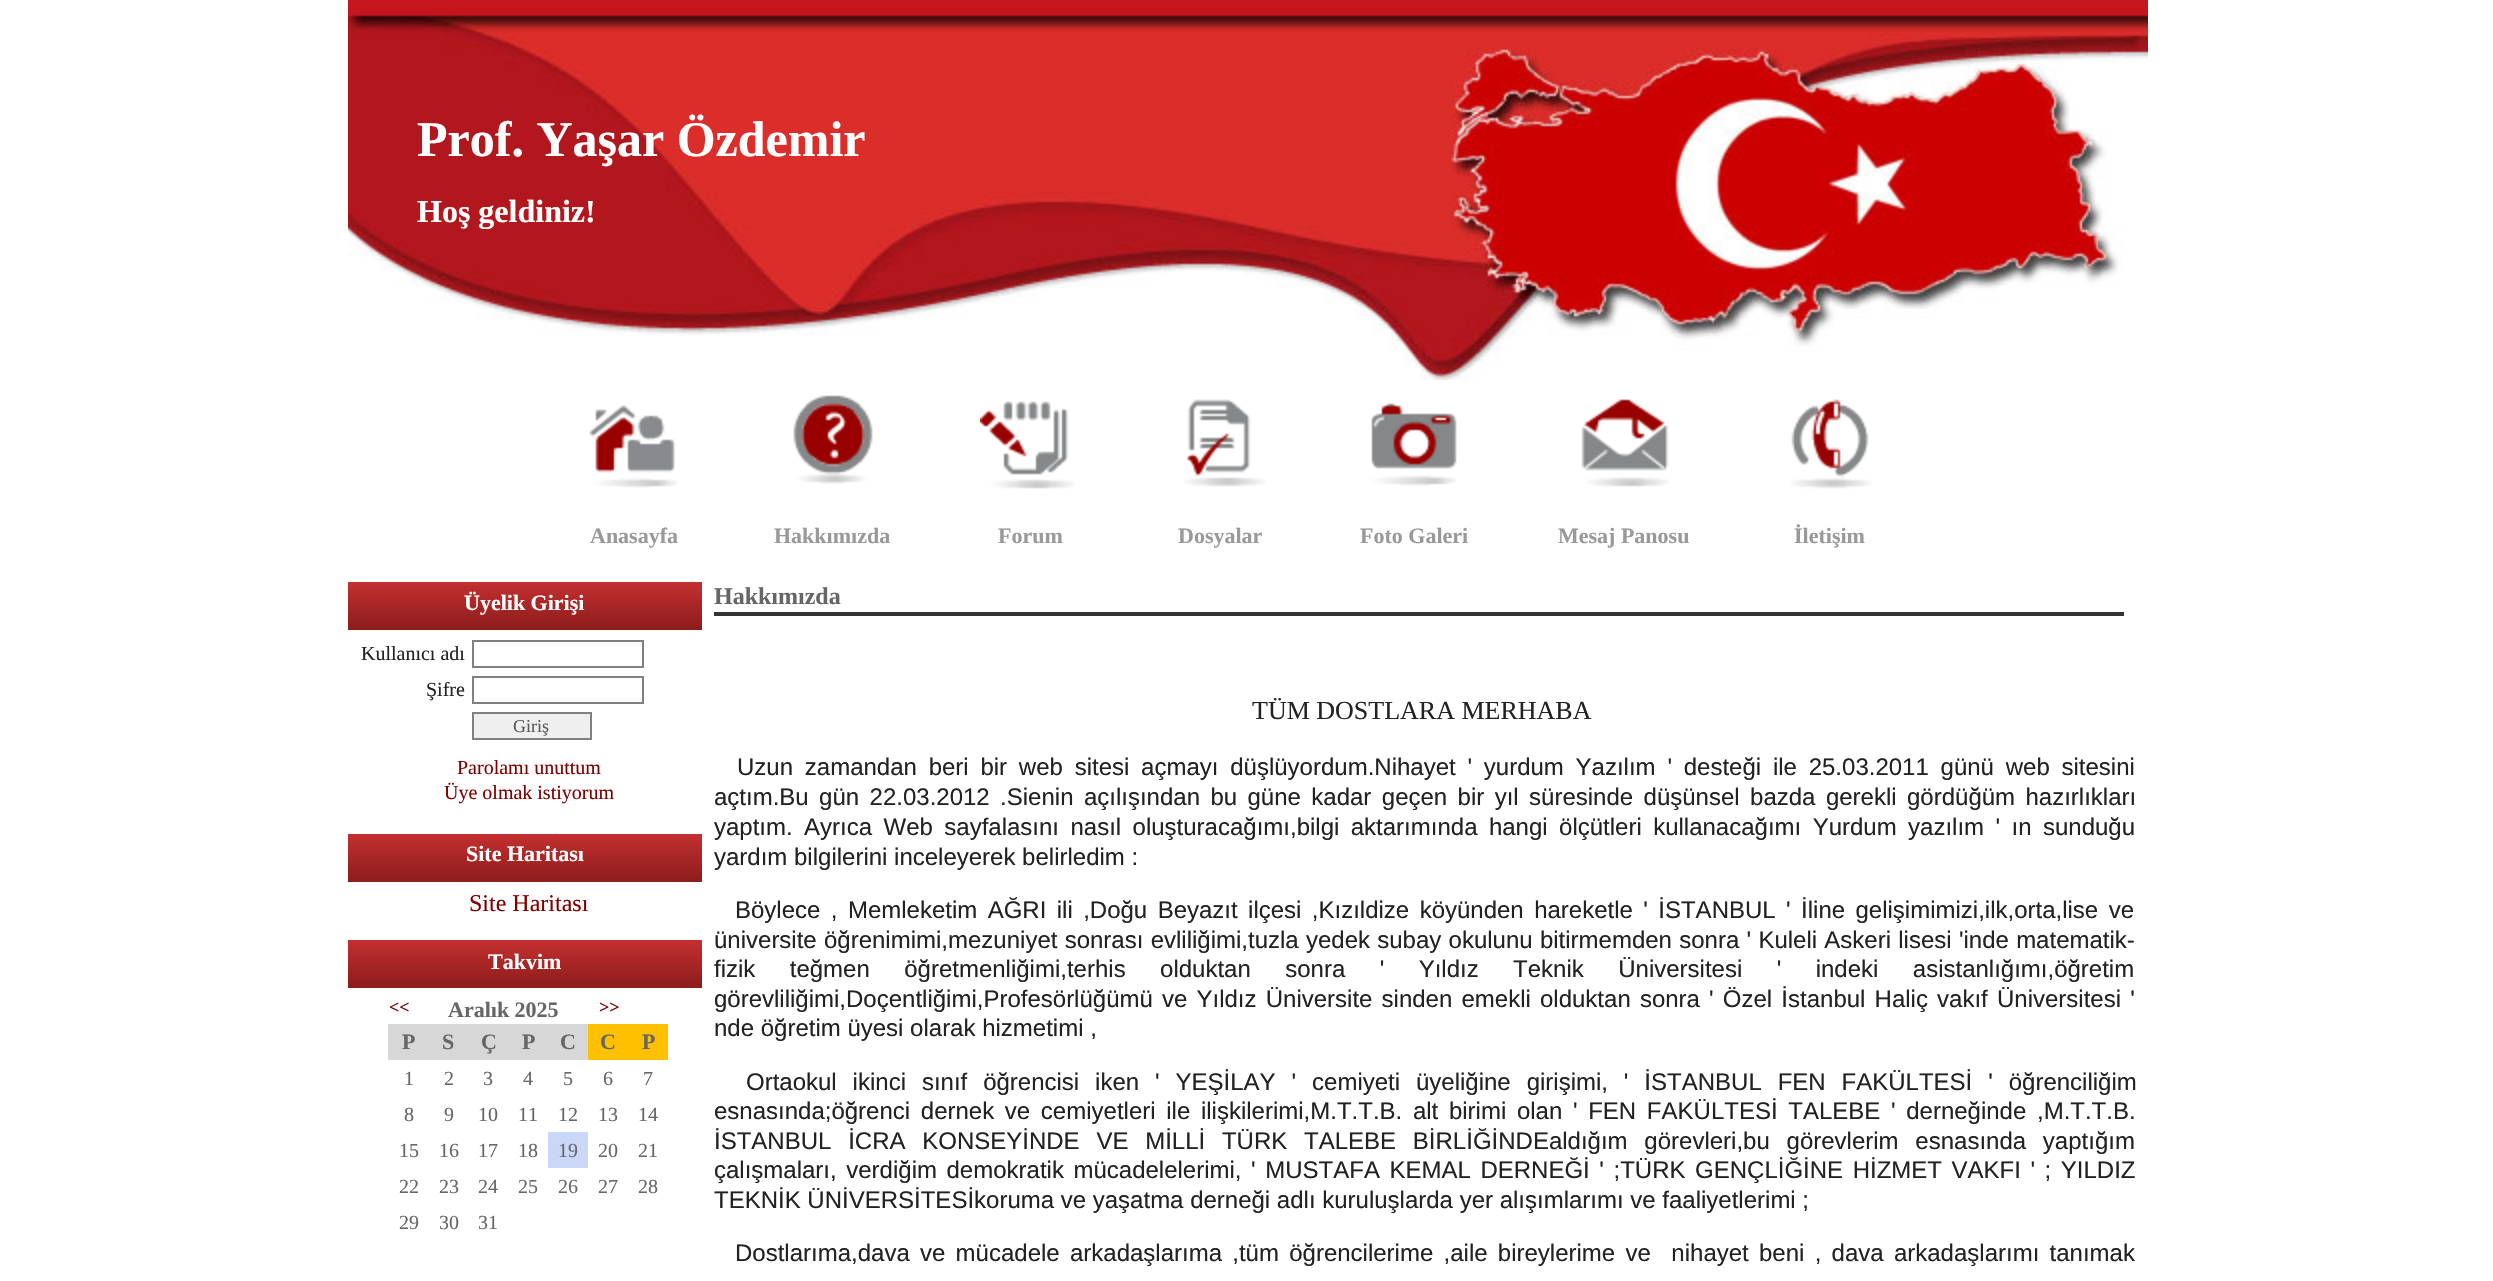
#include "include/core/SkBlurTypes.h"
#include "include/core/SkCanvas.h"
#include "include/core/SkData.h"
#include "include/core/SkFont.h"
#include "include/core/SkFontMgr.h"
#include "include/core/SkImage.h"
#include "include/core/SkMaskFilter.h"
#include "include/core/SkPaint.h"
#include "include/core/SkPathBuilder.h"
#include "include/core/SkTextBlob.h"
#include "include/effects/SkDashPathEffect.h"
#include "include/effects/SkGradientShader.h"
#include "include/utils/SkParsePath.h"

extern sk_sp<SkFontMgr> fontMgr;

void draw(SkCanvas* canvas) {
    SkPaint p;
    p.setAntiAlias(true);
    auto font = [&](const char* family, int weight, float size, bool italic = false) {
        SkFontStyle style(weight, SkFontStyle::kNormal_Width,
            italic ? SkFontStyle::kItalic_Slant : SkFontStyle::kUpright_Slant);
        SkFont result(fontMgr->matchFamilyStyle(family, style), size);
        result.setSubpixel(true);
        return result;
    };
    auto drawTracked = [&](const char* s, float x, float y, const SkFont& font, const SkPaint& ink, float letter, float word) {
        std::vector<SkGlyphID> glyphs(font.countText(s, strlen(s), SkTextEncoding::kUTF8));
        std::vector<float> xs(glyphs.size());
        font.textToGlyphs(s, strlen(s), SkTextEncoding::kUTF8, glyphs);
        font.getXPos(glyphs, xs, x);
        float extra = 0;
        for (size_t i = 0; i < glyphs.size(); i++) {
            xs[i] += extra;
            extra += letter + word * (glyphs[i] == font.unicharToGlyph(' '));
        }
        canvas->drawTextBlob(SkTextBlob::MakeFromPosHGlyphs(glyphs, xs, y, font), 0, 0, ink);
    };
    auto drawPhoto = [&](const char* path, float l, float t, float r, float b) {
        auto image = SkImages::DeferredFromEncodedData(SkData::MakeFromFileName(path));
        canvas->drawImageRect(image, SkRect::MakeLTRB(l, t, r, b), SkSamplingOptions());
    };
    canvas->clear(0xFFFFFFFF);
    drawPhoto("media/1.png", 348, 0, 2148, 380);
    auto font1 = font("Liberation Serif", 700, 50);
    p.setColor(0xFFFFFFFF);
    canvas->drawString("Prof. Yaşar Özdemir", 417, 156, font1, p);
    auto font2 = font("Liberation Serif", 700, 32);
    canvas->drawString("Hoş geldiniz!", 417, 222, font2, p);
    drawPhoto("media/2.png", 589, 405, 678, 488);
    auto font3 = font("Liberation Serif", 700, 22);
    p.setColor(0xFF999999);
    canvas->drawString("Anasayfa", 590, 543, font3, p);
    drawPhoto("media/3.png", 793, 395, 873, 484);
    canvas->drawString("Hakkımızda", 774, 543, font3, p);
    drawPhoto("media/4.png", 980, 401, 1076, 489);
    canvas->drawString("Forum", 998, 543, font3, p);
    drawPhoto("media/5.png", 1184, 399, 1266, 487);
    canvas->drawString("Dosyalar", 1178, 543, font3, p);
    drawPhoto("media/6.png", 1371, 403, 1457, 486);
    canvas->drawString("Foto Galeri", 1360, 543, font3, p);
    drawPhoto("media/7.png", 1581, 399, 1670, 487);
    canvas->drawString("Mesaj Panosu", 1558, 543, font3, p);
    drawPhoto("media/8.png", 1790, 399, 1872, 489);
    canvas->drawString("İletişim", 1794, 543, font3, p);
    {
        const SkColor colors[] = {0xFFC43030, 0xFF8C1C1B};
        const float stops[] = {0, 1};
        const SkPoint ends[] = {{525, 582}, {525, 630}};
        p.setShader(SkGradientShader::MakeLinear(ends, colors, stops, 2, SkTileMode::kClamp));
        p.setAlpha(255);
    }
    canvas->drawRect(SkRect::MakeLTRB(348, 582, 702, 630), p);
    p.setShader(nullptr);
    p.setColor(0xFFFFFFFF);
    canvas->drawString("Üyelik Girişi", 464, 610, font3, p);
    auto font4 = font("Liberation Serif", 400, 20);
    p.setColor(0xFF222222);
    canvas->drawString("Kullanıcı adı", 361, 660, font4, p);
    p.setStyle(SkPaint::kStroke_Style);
    p.setStrokeWidth(2);
    p.setColor(0xFF808080);
    canvas->drawRect(SkRect::MakeLTRB(473, 641, 643, 667), p);
    p.setStyle(SkPaint::kFill_Style);
    p.setColor(0xFF222222);
    canvas->drawString("Şifre", 426, 696, font4, p);
    p.setStyle(SkPaint::kStroke_Style);
    p.setColor(0xFF808080);
    canvas->drawRect(SkRect::MakeLTRB(473, 677, 643, 703), p);
    p.setStyle(SkPaint::kFill_Style);
    p.setColor(0xFFEFEFEF);
    canvas->drawRect(SkRect::MakeLTRB(473, 713, 591, 739), p);
    p.setStyle(SkPaint::kStroke_Style);
    p.setColor(0xFF808080);
    canvas->drawRect(SkRect::MakeLTRB(473, 713, 591, 739), p);
    auto font5 = font("Liberation Serif", 400, 18);
    p.setStyle(SkPaint::kFill_Style);
    p.setColor(0xFF585858);
    canvas->drawString("Giriş", 513, 732, font5, p);
    p.setColor(0xFF800000);
    canvas->drawString("Parolamı unuttum", 457, 774, font4, p);
    canvas->drawString("Üye olmak istiyorum", 444, 799, font4, p);
    {
        const SkColor colors[] = {0xFFC43030, 0xFF8C1C1B};
        const float stops[] = {0, 1};
        const SkPoint ends[] = {{525, 834}, {525, 882}};
        p.setShader(SkGradientShader::MakeLinear(ends, colors, stops, 2, SkTileMode::kClamp));
        p.setAlpha(255);
    }
    canvas->drawRect(SkRect::MakeLTRB(348, 834, 702, 882), p);
    p.setShader(nullptr);
    p.setColor(0xFFFFFFFF);
    canvas->drawString("Site Haritası", 466, 861, font3, p);
    auto font6 = font("Liberation Serif", 400, 24);
    p.setColor(0xFF800000);
    canvas->drawString("Site Haritası", 469, 911, font6, p);
    {
        const SkColor colors[] = {0xFFC43030, 0xFF8C1C1B};
        const float stops[] = {0, 1};
        const SkPoint ends[] = {{525, 940}, {525, 988}};
        p.setShader(SkGradientShader::MakeLinear(ends, colors, stops, 2, SkTileMode::kClamp));
        p.setAlpha(255);
    }
    canvas->drawRect(SkRect::MakeLTRB(348, 940, 702, 988), p);
    p.setShader(nullptr);
    p.setColor(0xFFFFFFFF);
    canvas->drawString("Takvim", 488, 969, font3, p);
    auto font7 = font("Liberation Serif", 700, 18);
    p.setColor(0xFF800000);
    canvas->drawString("<<", 389, 1013, font7, p);
    p.setColor(0xFF666666);
    canvas->drawString("Aralık 2025", 448, 1017, font3, p);
    p.setColor(0xFF800000);
    canvas->drawString(">>", 599, 1013, font7, p);
    p.setColor(0xFFD7D7D7);
    canvas->drawRect(SkRect::MakeLTRB(388, 1024, 588, 1060), p);
    p.setColor(0xFF666666);
    {
        const struct { const char* s; float x, y; } items[] = {
            {"P", 402, 1049},
            {"S", 442, 1049},
            {"Ç", 481, 1049},
            {"P", 522, 1049},
            {"C", 560, 1049},
        };
        for (auto [s, x, y] : items) {
            canvas->drawString(s, x, y, font3, p);
        }
    }
    p.setColor(0xFFFFC000);
    canvas->drawRect(SkRect::MakeLTRB(588, 1024, 668, 1060), p);
    p.setColor(0xFF666666);
    canvas->drawString("C", 600, 1049, font3, p);
    canvas->drawString("P", 642, 1049, font3, p);
    {
        const struct { const char* s; float x, y; } items[] = {
            {"1", 404, 1085},
            {"2", 444, 1085},
            {"3", 483, 1085},
            {"4", 523, 1085},
            {"5", 563, 1085},
            {"6", 603, 1085},
            {"7", 643, 1085},
            {"8", 404, 1121},
            {"9", 444, 1121},
            {"10", 478, 1121},
            {"11", 518, 1121},
            {"12", 558, 1121},
            {"13", 598, 1121},
            {"14", 638, 1121},
            {"15", 399, 1157},
            {"16", 439, 1157},
            {"17", 478, 1157},
            {"18", 518, 1157},
        };
        for (auto [s, x, y] : items) {
            canvas->drawString(s, x, y, font4, p);
        }
    }
    p.setColor(0xFFCAD7F9);
    canvas->drawRect(SkRect::MakeLTRB(548, 1132, 588, 1168), p);
    p.setColor(0xFF666666);
    {
        const struct { const char* s; float x, y; } items[] = {
            {"19", 558, 1157},
            {"20", 598, 1157},
            {"21", 638, 1157},
            {"22", 399, 1193},
            {"23", 439, 1193},
            {"24", 478, 1193},
            {"25", 518, 1193},
            {"26", 558, 1193},
            {"27", 598, 1193},
            {"28", 638, 1193},
            {"29", 399, 1229},
            {"30", 439, 1229},
            {"31", 478, 1229},
        };
        for (auto [s, x, y] : items) {
            canvas->drawString(s, x, y, font4, p);
        }
    }
    p.setColor(0xFF333333);
    canvas->drawRect(SkRect::MakeLTRB(714, 612, 2124, 616), p);
    auto font8 = font("Liberation Serif", 700, 24);
    p.setColor(0xFF666666);
    canvas->drawString("Hakkımızda", 714, 604, font8, p);
    auto font9 = font("Liberation Serif", 400, 26);
    p.setColor(0xFF222222);
    canvas->drawString("TÜM DOSTLARA MERHABA", 1252, 719, font9, p);
    auto font10 = font("Liberation Sans", 400, 24);
    drawTracked("Uzun zamandan beri bir web sitesi açmayı düşlüyordum.Nihayet ' yurdum Yazılım ' desteği ile 25.03.2011 günü web sitesini", 737, 775, font10, p, 0, 5.1f);
    drawTracked("açtım.Bu gün 22.03.2012 .Sienin açılışından bu güne kadar geçen bir yıl süresinde düşünsel bazda gerekli gördüğüm hazırlıkları", 714, 805, font10, p, 0, 3.75f);
    drawTracked("yaptım. Ayrıca Web sayfalasını nasıl oluşturacağımı,bilgi aktarımında hangi ölçütleri kullanacağımı Yurdum yazılım ' ın sunduğu", 714, 835, font10, p, 0, 4.75f);
    canvas->drawString("yardım bilgilerini inceleyerek belirledim :", 714, 865, font10, p);
    drawTracked("Böylece , Memleketim AĞRI ili ,Doğu Beyazıt ilçesi ,Kızıldize köyünden hareketle ' İSTANBUL ' İline gelişimimizi,ilk,orta,lise ve", 735, 918, font10, p, 0, 3.75f);
    drawTracked("üniversite öğrenimimi,mezuniyet sonrası evliliğimi,tuzla yedek subay okulunu bitirmemden sonra ' Kuleli Askeri lisesi 'inde matematik-", 714, 948, font10, p, 0, 0.6f);
    drawTracked("fizik teğmen öğretmenliğimi,terhis olduktan sonra ' Yıldız Teknik Üniversitesi ' indeki asistanlığımı,öğretim", 714, 977, font10, p, 0, 27.75f);
    drawTracked("görevliliğimi,Doçentliğimi,Profesörlüğümü ve Yıldız Üniversite sinden emekli olduktan sonra ' Özel İstanbul Haliç vakıf Üniversitesi '", 714, 1007, font10, p, 0, 2.5f);
    canvas->drawString("nde öğretim üyesi olarak hizmetimi ,", 714, 1036, font10, p);
    drawTracked("Ortaokul ikinci sınıf öğrencisi iken ' YEŞİLAY ' cemiyeti üyeliğine girişimi, ' İSTANBUL FEN FAKÜLTESİ ' öğrenciliğim", 746, 1090, font10, p, 0, 9.25f);
    drawTracked("esnasında;öğrenci dernek ve cemiyetleri ile ilişkilerimi,M.T.T.B. alt birimi olan ' FEN FAKÜLTESİ TALEBE ' derneğinde ,M.T.T.B.", 714, 1119, font10, p, 0, 4);
    drawTracked("İSTANBUL İCRA KONSEYİNDE VE MİLLİ TÜRK TALEBE BİRLİĞİNDEaldığım görevleri,bu görevlerim esnasında yaptığım", 714, 1149, font10, p, 0, 10.1f);
    drawTracked("çalışmaları, verdiğim demokratik mücadelelerimi, ' MUSTAFA KEMAL DERNEĞİ ' ;TÜRK GENÇLİĞİNE HİZMET VAKFI ' ; YILDIZ", 714, 1178, font10, p, 0, 2.9f);
    canvas->drawString("TEKNİK ÜNİVERSİTESİkoruma ve yaşatma derneği adlı kuruluşlarda yer alışımlarımı ve faaliyetlerimi ;", 714, 1208, font10, p);
    drawTracked("Dostlarıma,dava ve mücadele arkadaşlarıma ,tüm öğrencilerime ,aile bireylerime ve  nihayet beni , dava arkadaşlarımı tanımak", 735, 1261, font10, p, 0, 3.6f);
}
